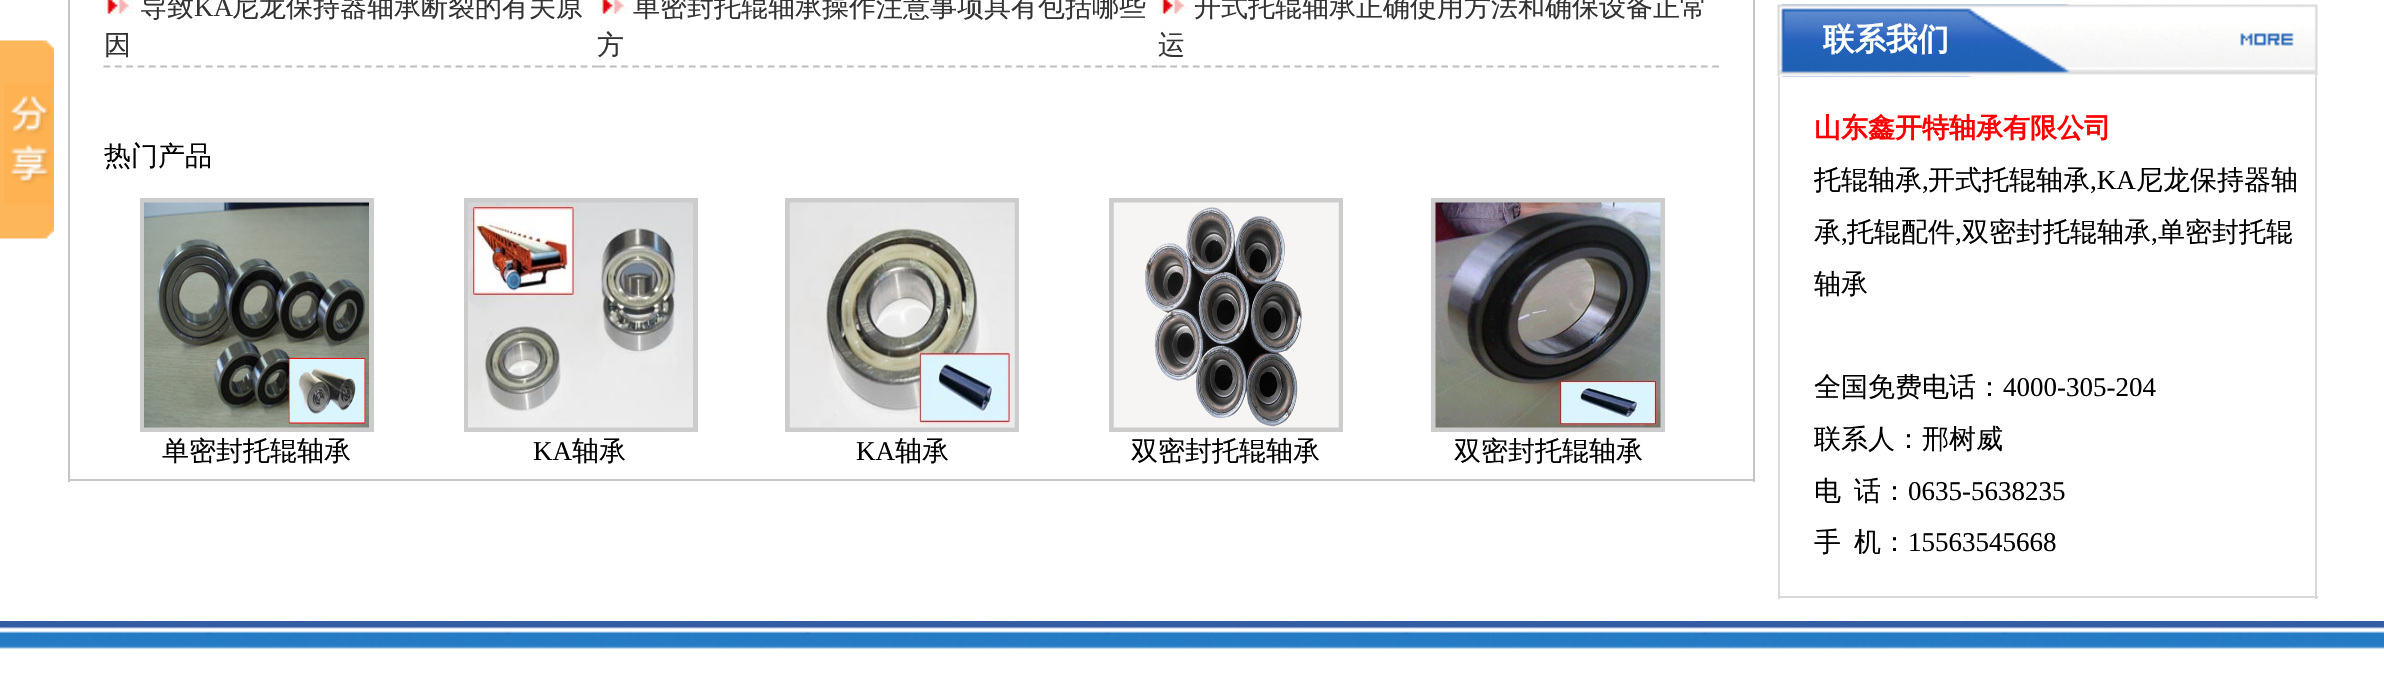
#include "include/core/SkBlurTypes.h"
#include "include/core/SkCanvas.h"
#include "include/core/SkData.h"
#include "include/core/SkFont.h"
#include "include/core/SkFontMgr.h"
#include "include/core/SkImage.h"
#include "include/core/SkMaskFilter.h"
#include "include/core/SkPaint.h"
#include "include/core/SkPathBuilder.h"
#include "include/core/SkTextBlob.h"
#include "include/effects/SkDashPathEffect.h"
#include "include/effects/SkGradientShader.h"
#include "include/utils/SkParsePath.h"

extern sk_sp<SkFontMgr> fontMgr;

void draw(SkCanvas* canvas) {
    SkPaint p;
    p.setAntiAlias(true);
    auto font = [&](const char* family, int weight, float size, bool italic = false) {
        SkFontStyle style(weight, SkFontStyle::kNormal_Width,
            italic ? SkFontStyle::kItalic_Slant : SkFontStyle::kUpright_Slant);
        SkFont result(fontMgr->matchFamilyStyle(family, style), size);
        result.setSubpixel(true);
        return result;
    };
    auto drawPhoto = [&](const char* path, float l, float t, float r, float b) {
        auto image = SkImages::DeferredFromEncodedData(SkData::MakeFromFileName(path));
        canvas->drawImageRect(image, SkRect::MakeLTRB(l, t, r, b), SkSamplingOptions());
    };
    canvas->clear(0xFFFFFFFF);
    drawPhoto("media/1.png", 0, 40, 54, 239);
    {
        const struct { float l, t, r, b; SkColor color; } items[] = {
            {1753, 0, 1755, 482, 0xFFC6C6C6},
            {68, 479, 1755, 481, 0xFFC6C6C6},
            {68, 0, 70, 482, 0xFFC6C6C6},
        };
        for (auto [l, t, r, b, color] : items) {
            p.setColor(color);
            canvas->drawRect(SkRect::MakeLTRB(l, t, r, b), p);
        }
    }
    p.setStyle(SkPaint::kStroke_Style);
    p.setStrokeWidth(2.2f);
    p.setColor(0xFFBEBEBE);
    p.setPathEffect(SkDashPathEffect::Make({{6.75f, 4.61f}}, 0));
    canvas->drawPath(SkPathBuilder().moveTo(103.5f, 66.5f).lineTo(598.5f, 66.5f).detach(), p);
    p.setPathEffect(nullptr);
    drawPhoto("media/2.png", 103, 0, 133, 15);
    auto font1 = font("WenQuanYi Zen Hei", 500, 27);
    p.setStyle(SkPaint::kFill_Style);
    p.setColor(0xFF333333);
    canvas->drawString("导致", 140, 16, font1, p);
    auto font2 = font("Liberation Serif", 400, 27);
    canvas->drawString("KA", 194, 16, font2, p);
    canvas->drawString("尼龙保持器轴承断裂的有关原", 232, 16, font1, p);
    canvas->drawString("因", 104, 54, font1, p);
    p.setStyle(SkPaint::kStroke_Style);
    p.setColor(0xFFBEBEBE);
    p.setPathEffect(SkDashPathEffect::Make({{6.75f, 4.54f}}, 0));
    canvas->drawPath(SkPathBuilder().moveTo(598.5f, 66.5f).lineTo(1159, 66.5f).detach(), p);
    p.setPathEffect(nullptr);
    drawPhoto("media/2.png", 598, 0, 628, 15);
    p.setStyle(SkPaint::kFill_Style);
    p.setColor(0xFF333333);
    canvas->drawString("单密封托辊轴承操作注意事项具有包括哪些", 633, 16, font1, p);
    canvas->drawString("方", 597, 54, font1, p);
    p.setStyle(SkPaint::kStroke_Style);
    p.setColor(0xFFBEBEBE);
    p.setPathEffect(SkDashPathEffect::Make({{6.75f, 4.54f}}, 0));
    canvas->drawPath(SkPathBuilder().moveTo(1159, 66.5f).lineTo(1719, 66.5f).detach(), p);
    p.setPathEffect(nullptr);
    drawPhoto("media/3.png", 1158, 0, 1188, 15);
    p.setStyle(SkPaint::kFill_Style);
    p.setColor(0xFF333333);
    canvas->drawString("开式托辊轴承正确使用方法和确保设备正常", 1194, 16, font1, p);
    canvas->drawString("运", 1158, 54, font1, p);
    p.setColor(0xFF000000);
    canvas->drawString("热门产品", 104, 165, font1, p);
    p.setStyle(SkPaint::kStroke_Style);
    p.setStrokeWidth(5);
    p.setColor(0xFFCCCCCC);
    canvas->drawRect(SkRect::MakeLTRB(142.5f, 200.5f, 371.5f, 429.5f), p);
    drawPhoto("media/4.png", 144, 202, 369, 428);
    p.setStyle(SkPaint::kFill_Style);
    p.setColor(0xFF000000);
    canvas->drawString("单密封托辊轴承", 162, 460, font1, p);
    p.setStyle(SkPaint::kStroke_Style);
    p.setColor(0xFFCCCCCC);
    canvas->drawRect(SkRect::MakeLTRB(466.5f, 200.5f, 695.5f, 429.5f), p);
    drawPhoto("media/5.png", 468, 202, 693, 428);
    p.setStyle(SkPaint::kFill_Style);
    p.setColor(0xFF000000);
    canvas->drawString("KA", 533, 460, font2, p);
    canvas->drawString("轴承", 572, 460, font1, p);
    p.setStyle(SkPaint::kStroke_Style);
    p.setColor(0xFFCCCCCC);
    canvas->drawRect(SkRect::MakeLTRB(787.5f, 200.5f, 1016.5f, 429.5f), p);
    drawPhoto("media/6.png", 789, 202, 1015, 428);
    p.setStyle(SkPaint::kFill_Style);
    p.setColor(0xFF000000);
    canvas->drawString("KA", 856, 460, font2, p);
    canvas->drawString("轴承", 895, 460, font1, p);
    p.setStyle(SkPaint::kStroke_Style);
    p.setColor(0xFFCCCCCC);
    canvas->drawRect(SkRect::MakeLTRB(1111.5f, 200.5f, 1340.5f, 429.5f), p);
    drawPhoto("media/7.png", 1113, 202, 1339, 428);
    p.setStyle(SkPaint::kFill_Style);
    p.setColor(0xFF000000);
    canvas->drawString("双密封托辊轴承", 1131, 460, font1, p);
    p.setStyle(SkPaint::kStroke_Style);
    p.setColor(0xFFCCCCCC);
    canvas->drawRect(SkRect::MakeLTRB(1433.5f, 200.5f, 1662.5f, 429.5f), p);
    drawPhoto("media/8.png", 1435, 202, 1661, 428);
    p.setStyle(SkPaint::kFill_Style);
    p.setColor(0xFF000000);
    canvas->drawString("双密封托辊轴承", 1454, 460, font1, p);
    drawPhoto("media/9.png", 1777, 4, 2318, 77);
    auto font3 = font("WenQuanYi Zen Hei", 700, 31.5f);
    p.setColor(0xFFFFFFFF);
    canvas->drawString("联系我们", 1823, 50, font3, p);
    {
        const struct { float l, t, r, b; SkColor color; } items[] = {
            {2315, 77, 2317, 599, 0xFFD9D9D9},
            {1778, 596, 2318, 598, 0xFFD9D9D9},
            {1778, 77, 1780, 599, 0xFFD9D9D9},
        };
        for (auto [l, t, r, b, color] : items) {
            p.setColor(color);
            canvas->drawRect(SkRect::MakeLTRB(l, t, r, b), p);
        }
    }
    auto font4 = font("WenQuanYi Zen Hei", 700, 27);
    p.setColor(0xFFFF0000);
    canvas->drawString("山东鑫开特轴承有限公司", 1814, 137, font4, p);
    p.setColor(0xFF000000);
    canvas->drawString("托辊轴承", 1814, 189, font1, p);
    canvas->drawString(",", 1922, 189, font2, p);
    canvas->drawString("开式托辊轴承", 1928, 189, font1, p);
    canvas->drawString(",KA", 2090, 189, font2, p);
    canvas->drawString("尼龙保持器轴", 2136, 189, font1, p);
    canvas->drawString("承", 1814, 241, font1, p);
    canvas->drawString(",", 1841, 241, font2, p);
    canvas->drawString("托辊配件", 1847, 241, font1, p);
    canvas->drawString(",", 1955, 241, font2, p);
    canvas->drawString("双密封托辊轴承", 1962, 241, font1, p);
    canvas->drawString(",", 2151, 241, font2, p);
    {
        const struct { const char* s; float x, y; } items[] = {
            {"单密封托辊", 2158, 241},
            {"轴承", 1814, 293},
            {"全国免费电话：", 1814, 396},
        };
        for (auto [s, x, y] : items) {
            canvas->drawString(s, x, y, font1, p);
        }
    }
    canvas->drawString("4000-305-204", 2003, 396, font2, p);
    {
        const struct { const char* s; float x, y; } items[] = {
            {"联系人：邢树威", 1814, 448},
            {"电", 1814, 500},
            {"话：", 1854, 500},
        };
        for (auto [s, x, y] : items) {
            canvas->drawString(s, x, y, font1, p);
        }
    }
    canvas->drawString("0635-5638235", 1908, 500, font2, p);
    canvas->drawString("手", 1814, 551, font1, p);
    canvas->drawString("机：", 1854, 551, font1, p);
    canvas->drawString("15563545668", 1908, 551, font2, p);
    drawPhoto("media/10.png", 0, 621, 2384, 649);
}
